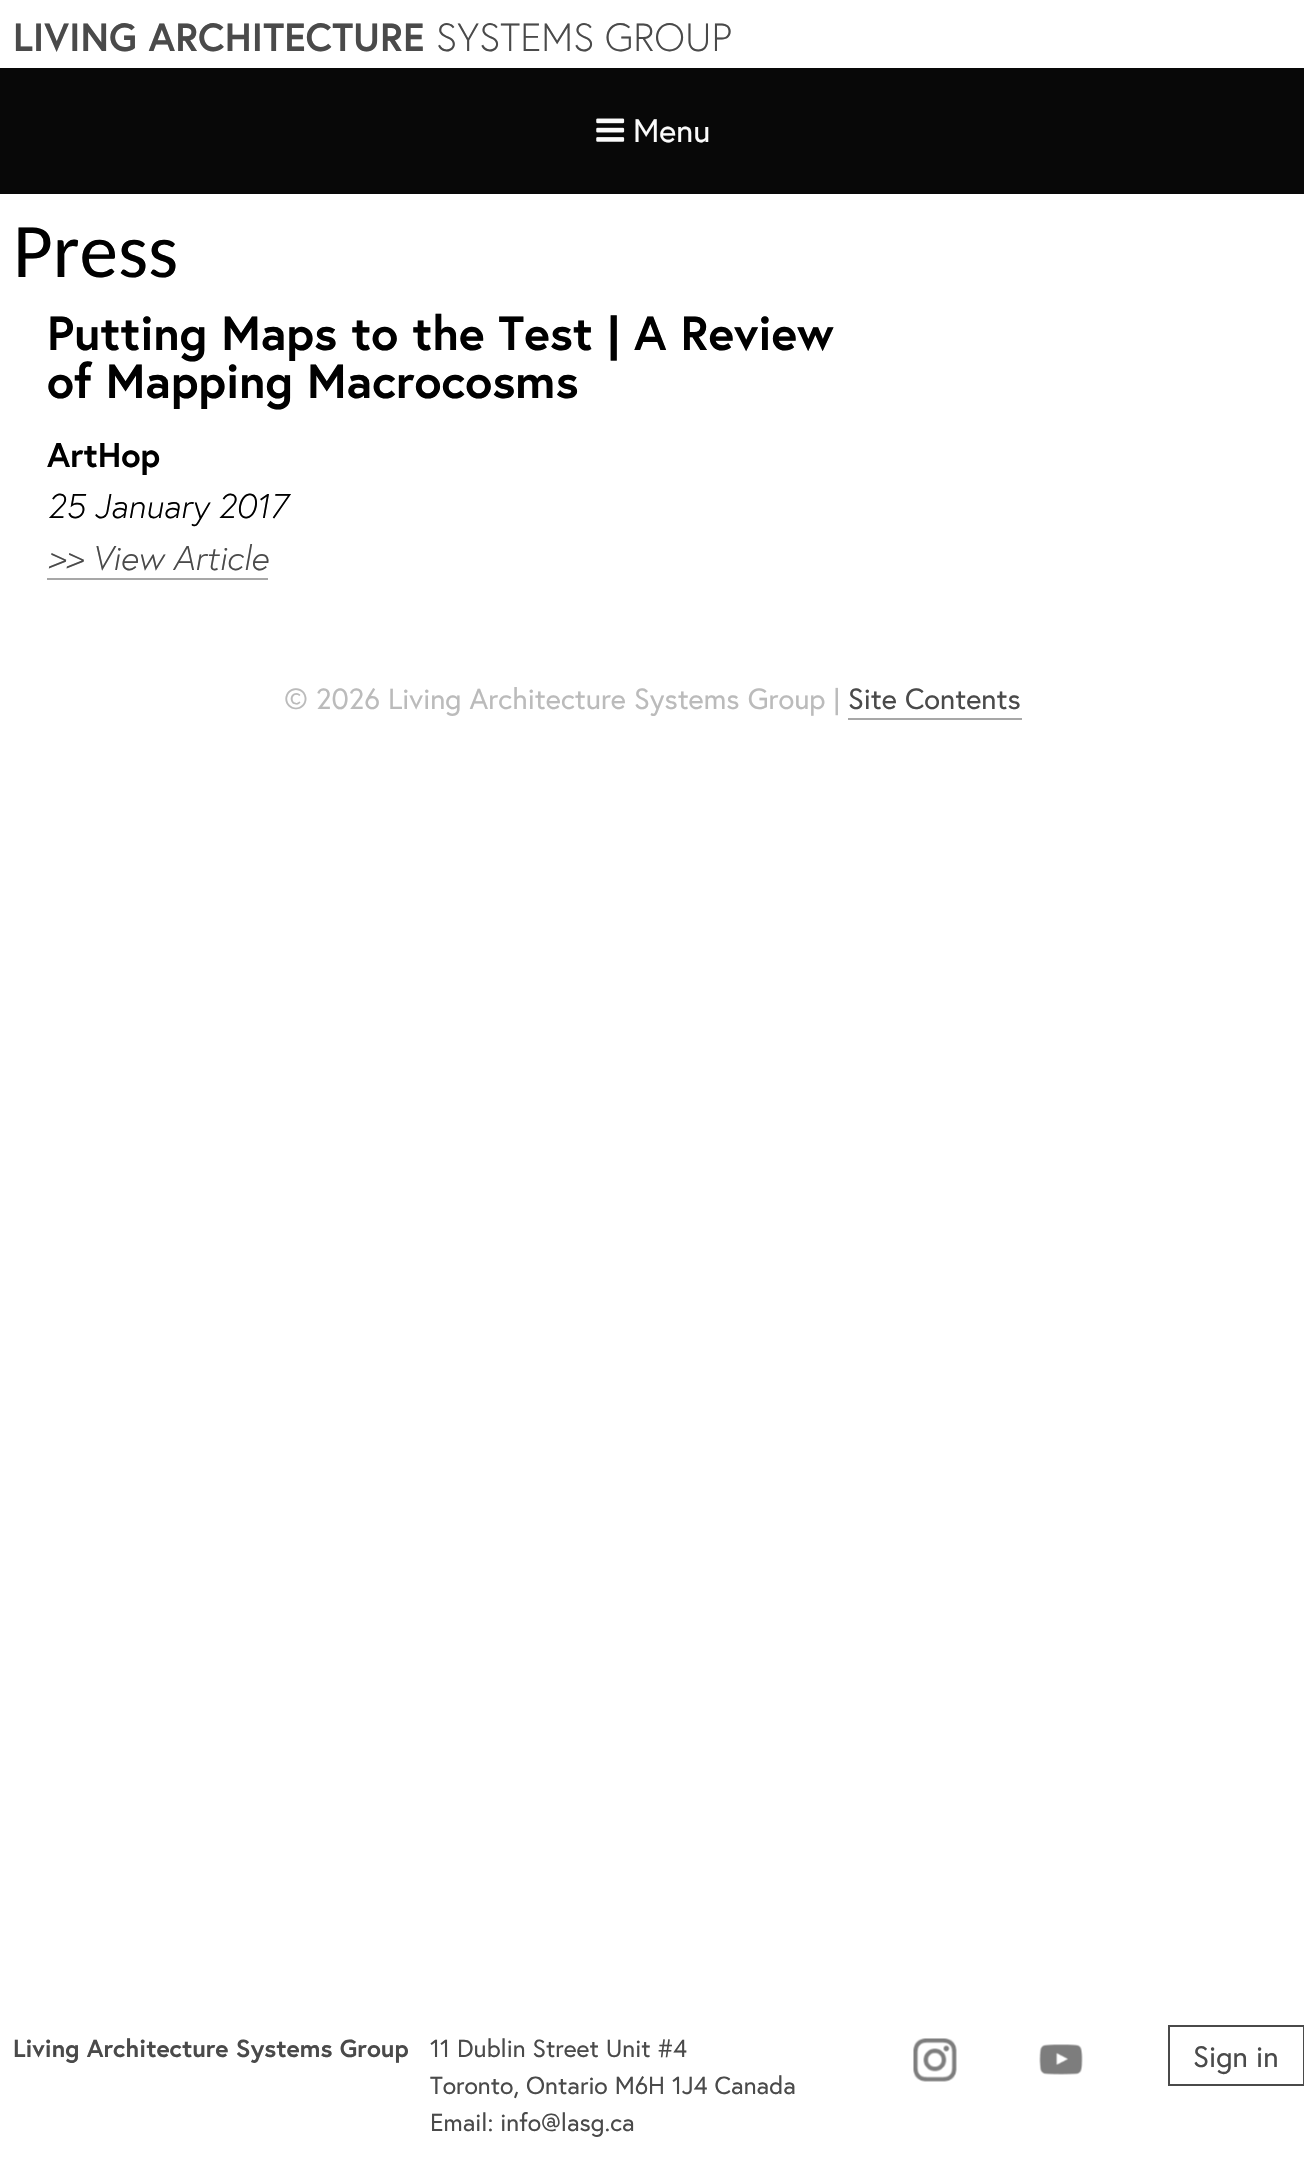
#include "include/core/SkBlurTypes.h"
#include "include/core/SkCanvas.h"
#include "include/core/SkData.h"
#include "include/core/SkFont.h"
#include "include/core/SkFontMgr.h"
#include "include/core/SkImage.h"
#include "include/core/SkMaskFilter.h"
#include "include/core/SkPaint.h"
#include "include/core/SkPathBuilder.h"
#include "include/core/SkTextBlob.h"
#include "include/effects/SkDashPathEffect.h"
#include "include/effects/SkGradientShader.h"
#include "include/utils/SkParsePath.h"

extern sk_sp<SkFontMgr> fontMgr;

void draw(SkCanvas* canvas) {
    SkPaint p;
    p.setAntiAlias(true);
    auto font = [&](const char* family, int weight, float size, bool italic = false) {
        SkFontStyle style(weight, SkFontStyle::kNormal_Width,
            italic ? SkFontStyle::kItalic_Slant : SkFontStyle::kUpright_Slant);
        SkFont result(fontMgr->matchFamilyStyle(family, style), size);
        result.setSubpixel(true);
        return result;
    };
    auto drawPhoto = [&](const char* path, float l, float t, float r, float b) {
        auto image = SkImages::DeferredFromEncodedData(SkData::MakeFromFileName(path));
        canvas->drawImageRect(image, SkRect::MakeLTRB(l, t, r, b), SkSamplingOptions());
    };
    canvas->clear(0xFFFFFFFF);
    auto font1 = font("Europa", 700, 39.25f);
    p.setColor(0xFF4A4A4A);
    canvas->drawString("LIVING ARCHITECTURE", 13, 51, font1, p);
    auto font2 = font("Europa", 300, 39.25f);
    canvas->drawString("SYSTEMS GROUP", 436, 51, font2, p);
    p.setColor(0xFF080808);
    canvas->drawRect(SkRect::MakeLTRB(0, 68, 1304, 194), p);
    drawPhoto("media/1.png", 596, 118, 625, 142);
    auto font3 = font("Europa", 400, 32.5f);
    p.setColor(0xFFFBFBFB);
    canvas->drawString("Menu", 633, 142, font3, p);
    auto font4 = font("Carlito", 400, 77);
    p.setColor(0xFF000000);
    canvas->drawString("Press", 13, 277, font4, p);
    auto font5 = font("Europa", 700, 47.9f);
    canvas->drawString("Putting Maps to the Test", 47, 350, font5, p);
    auto font6 = font("Liberation Sans", 700, 47.9f);
    canvas->drawString("|", 607, 350, font6, p);
    canvas->drawString("A Review", 634, 350, font5, p);
    canvas->drawString("of Mapping Macrocosms", 47, 398, font5, p);
    auto font7 = font("Europa", 700, 34.25f);
    canvas->drawString("ArtHop", 47, 467, font7, p);
    auto font8 = font("Europa", 300, 34.25f, true);
    canvas->drawString("25 January 2017", 47, 518, font8, p);
    p.setColor(0xFF4A4A4A);
    canvas->drawString(">> View Article", 47, 570, font8, p);
    p.setColor(0xFFA7A7A7);
    canvas->drawRect(SkRect::MakeLTRB(47, 578, 268, 580), p);
    auto font9 = font("Europa", 400, 29.1f);
    p.setColor(0xFFBBBBBB);
    canvas->drawString("© 2026 Living Architecture Systems Group", 284, 709, font9, p);
    auto font10 = font("Liberation Sans", 400, 29.1f);
    canvas->drawString("|", 833, 709, font10, p);
    p.setColor(0xFF4A4A4A);
    canvas->drawString("Site Contents", 848, 709, font9, p);
    p.setColor(0xFFA7A7A7);
    canvas->drawRect(SkRect::MakeLTRB(848, 718, 1022, 720), p);
    auto font11 = font("Europa", 700, 24.75f);
    p.setColor(0xFF4A4A4A);
    canvas->drawString("Living Architecture Systems Group", 13, 2057, font11, p);
    auto font12 = font("Europa", 400, 24.75f);
    {
        const struct { const char* s; float x, y; } items[] = {
            {"11 Dublin Street Unit #4", 430, 2057},
            {"Toronto, Ontario M6H 1J4 Canada", 430, 2094},
            {"Email: info@lasg.ca", 430, 2131},
        };
        for (auto [s, x, y] : items) {
            canvas->drawString(s, x, y, font12, p);
        }
    }
    drawPhoto("media/2.png", 913, 2038, 957, 2082);
    drawPhoto("media/3.png", 1039, 2044, 1083, 2075);
    p.setStyle(SkPaint::kStroke_Style);
    p.setStrokeWidth(2);
    canvas->drawRect(SkRect::MakeLTRB(1169, 2026, 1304, 2085), p);
    auto font13 = font("Europa", 400, 29.5f);
    p.setStyle(SkPaint::kFill_Style);
    canvas->drawString("Sign in", 1193, 2067, font13, p);
}
